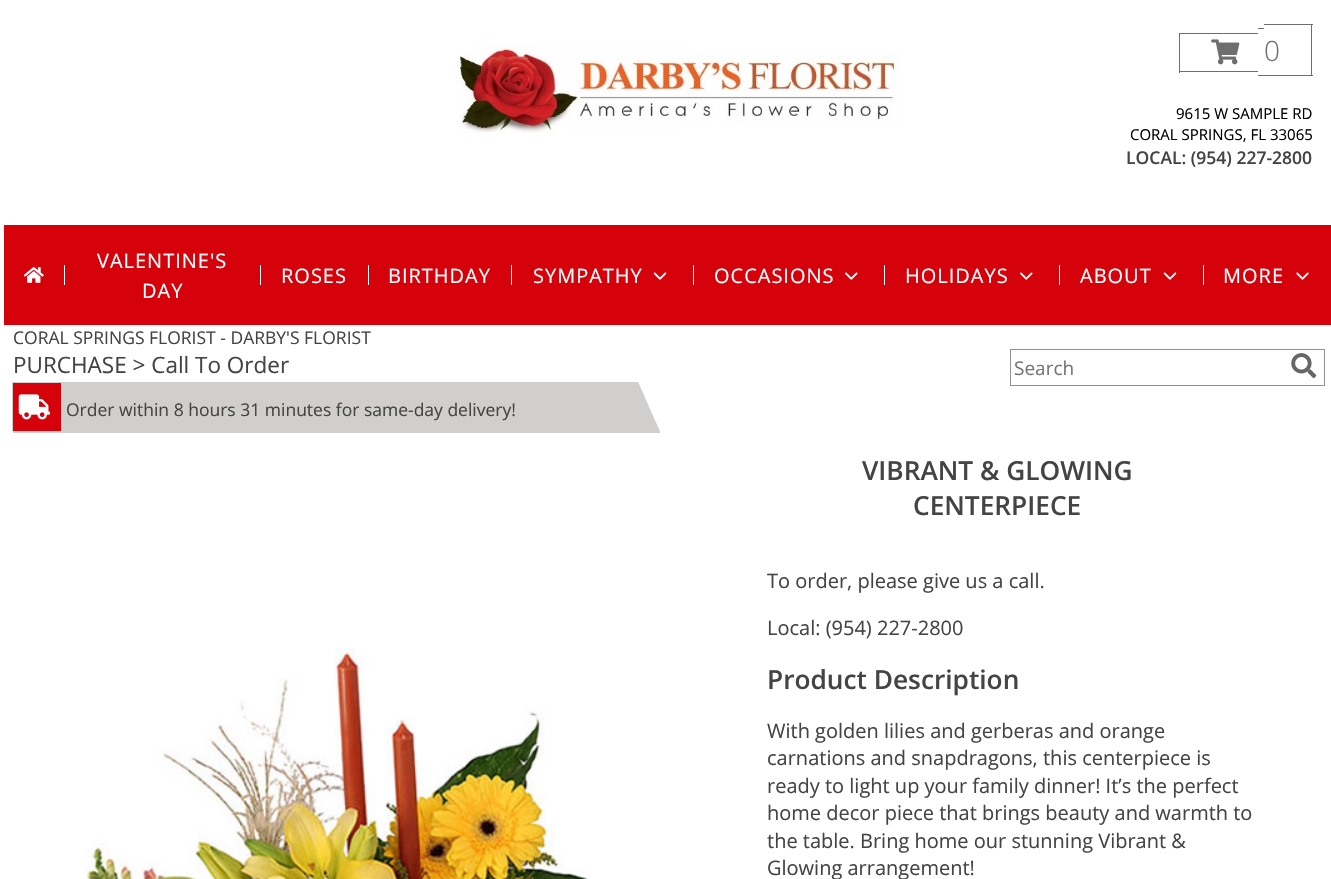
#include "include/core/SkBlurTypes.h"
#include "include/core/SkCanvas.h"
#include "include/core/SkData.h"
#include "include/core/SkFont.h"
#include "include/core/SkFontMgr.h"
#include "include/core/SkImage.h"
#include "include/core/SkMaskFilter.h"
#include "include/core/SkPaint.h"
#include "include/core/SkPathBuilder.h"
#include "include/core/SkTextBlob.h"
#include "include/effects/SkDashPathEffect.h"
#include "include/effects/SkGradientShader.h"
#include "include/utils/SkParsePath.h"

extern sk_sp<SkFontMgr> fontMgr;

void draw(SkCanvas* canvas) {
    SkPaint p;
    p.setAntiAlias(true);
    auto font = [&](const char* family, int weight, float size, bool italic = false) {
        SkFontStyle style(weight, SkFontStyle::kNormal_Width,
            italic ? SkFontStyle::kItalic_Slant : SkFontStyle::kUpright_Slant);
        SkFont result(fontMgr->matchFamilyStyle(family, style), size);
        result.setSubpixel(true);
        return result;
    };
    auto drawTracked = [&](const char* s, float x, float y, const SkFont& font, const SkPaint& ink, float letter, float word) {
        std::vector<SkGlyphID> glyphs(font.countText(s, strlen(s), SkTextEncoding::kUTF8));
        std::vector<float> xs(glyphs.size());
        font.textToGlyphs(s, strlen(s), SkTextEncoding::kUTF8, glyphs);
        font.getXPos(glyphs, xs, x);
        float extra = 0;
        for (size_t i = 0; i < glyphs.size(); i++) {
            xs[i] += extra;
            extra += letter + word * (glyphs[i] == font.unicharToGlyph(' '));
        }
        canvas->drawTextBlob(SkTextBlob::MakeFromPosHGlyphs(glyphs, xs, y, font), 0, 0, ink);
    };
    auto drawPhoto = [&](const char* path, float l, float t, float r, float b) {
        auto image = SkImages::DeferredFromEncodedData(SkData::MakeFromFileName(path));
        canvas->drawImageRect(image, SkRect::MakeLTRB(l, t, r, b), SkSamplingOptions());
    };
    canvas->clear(0xFFFFFFFF);
    drawPhoto("media/1.png", 456, 44, 900, 133);
    {
        const struct { float l, t, r, b; SkColor color; } items[] = {
            {1179, 33, 1258, 34, 0xFF6E6E6E},
            {1179, 71, 1258, 72, 0xFF6E6E6E},
            {1179, 33, 1180, 73, 0xFF6E6E6E},
            {1258, 28, 1264, 29, 0xFF6E6E6E},
            {1258, 75, 1264, 76, 0xFF6E6E6E},
            {1264, 24, 1313, 25, 0xFF6E6E6E},
            {1311, 24, 1312, 76, 0xFF6E6E6E},
            {1264, 75, 1313, 76, 0xFF6E6E6E},
        };
        for (auto [l, t, r, b, color] : items) {
            p.setColor(color);
            canvas->drawRect(SkRect::MakeLTRB(l, t, r, b), p);
        }
    }
    drawPhoto("media/2.png", 1211, 39, 1240, 65);
    auto font1 = font("Open Sans", 300, 28);
    canvas->drawString("0", 1264, 61, font1, p);
    auto font2 = font("Open Sans", 400, 15);
    p.setColor(0xFF000000);
    canvas->drawString("9615 W SAMPLE RD", 1176, 119, font2, p);
    canvas->drawString("CORAL SPRINGS, FL 33065", 1130, 140, font2, p);
    auto font3 = font("Open Sans", 600, 17.5f);
    p.setColor(0xFF444444);
    canvas->drawString("LOCAL: (954) 227-2800", 1126, 164, font3, p);
    p.setColor(0xFFD5020B);
    canvas->drawRect(SkRect::MakeLTRB(4, 225, 1331, 325), p);
    drawPhoto("media/3.png", 24, 267, 44, 283);
    p.setColor(0xFFFFFFFF);
    canvas->drawRect(SkRect::MakeLTRB(64, 265, 65, 285), p);
    auto font4 = font("Open Sans", 400, 20);
    drawTracked("VALENTINE'S", 97, 268, font4, p, 1, 0);
    drawTracked("DAY", 142, 298, font4, p, 1, 0);
    canvas->drawRect(SkRect::MakeLTRB(260, 265, 261, 285), p);
    drawTracked("ROSES", 281, 283, font4, p, 1, 0);
    canvas->drawRect(SkRect::MakeLTRB(368, 265, 369, 285), p);
    drawTracked("BIRTHDAY", 388, 283, font4, p, 1, 0);
    canvas->drawRect(SkRect::MakeLTRB(511, 265, 512, 285), p);
    drawTracked("SYMPATHY", 533, 283, font4, p, 1, 0);
    drawPhoto("media/4.png", 653, 272, 667, 280);
    canvas->drawRect(SkRect::MakeLTRB(693, 265, 694, 285), p);
    drawTracked("OCCASIONS", 714, 283, font4, p, 1, 0);
    drawPhoto("media/5.png", 845, 272, 858, 280);
    canvas->drawRect(SkRect::MakeLTRB(884, 265, 885, 285), p);
    drawTracked("HOLIDAYS", 905, 283, font4, p, 1, 0);
    drawPhoto("media/5.png", 1020, 272, 1033, 280);
    canvas->drawRect(SkRect::MakeLTRB(1059, 265, 1060, 285), p);
    drawTracked("ABOUT", 1080, 283, font4, p, 1, 0);
    drawPhoto("media/4.png", 1163, 272, 1177, 280);
    canvas->drawRect(SkRect::MakeLTRB(1203, 265, 1204, 285), p);
    drawTracked("MORE", 1223, 283, font4, p, 1, 0);
    drawPhoto("media/6.png", 1296, 272, 1309, 280);
    auto font5 = font("Open Sans", 400, 17.5f);
    p.setColor(0xFF444444);
    canvas->drawString("CORAL SPRINGS FLORIST - DARBY'S FLORIST", 13, 344, font5, p);
    auto font6 = font("Open Sans", 400, 22.5f);
    canvas->drawString("PURCHASE > Call To Order", 13, 373, font6, p);
    p.setStyle(SkPaint::kStroke_Style);
    p.setStrokeWidth(1);
    p.setColor(0xFF919191);
    canvas->drawRect(SkRect::MakeLTRB(1010.5f, 349.5f, 1324.5f, 385.5f), p);
    auto font7 = font("Open Sans", 400, 19);
    p.setStyle(SkPaint::kFill_Style);
    p.setColor(0xFF757575);
    canvas->drawString("Search", 1014, 375, font7, p);
    drawPhoto("media/7.png", 1291, 353, 1317, 379);
    p.setColor(0xFFD0CFCD);
    canvas->drawRect(SkRect::MakeLTRB(13, 383, 660, 433), p);
    p.setColor(0xFFFFFFFF);
    canvas->drawPath(SkPathBuilder().moveTo(660, 382).lineTo(660, 432).lineTo(638, 382).close().detach(), p);
    p.setColor(0xFFD0CFCD);
    canvas->drawPath(SkPathBuilder().moveTo(660, 432).lineTo(12, 432).lineTo(12, 382).lineTo(638, 382).close().detach(), p);
    p.setColor(0xFFD5020B);
    canvas->drawRect(SkRect::MakeLTRB(13, 383, 61, 431), p);
    drawPhoto("media/8.png", 18, 394, 50, 420);
    p.setColor(0xFF444444);
    canvas->drawString("Order within 8 hours 31 minutes for same-day delivery!", 66, 416, font5, p);
    drawPhoto("media/9.png", 85, 648, 591, 879);
    auto font8 = font("Open Sans", 600, 26.25f);
    canvas->drawString("VIBRANT & GLOWING", 862, 480, font8, p);
    canvas->drawString("CENTERPIECE", 913, 515, font8, p);
    canvas->drawString("To order, please give us a call.", 767, 588, font4, p);
    canvas->drawString("Local: (954) 227-2800", 767, 635, font4, p);
    canvas->drawString("Product Description", 767, 689, font8, p);
    {
        const struct { const char* s; float x, y; } items[] = {
            {"With golden lilies and gerberas and orange", 767, 738},
            {"carnations and snapdragons, this centerpiece is", 767, 765},
            {"ready to light up your family dinner! It’s the perfect", 767, 793},
            {"home decor piece that brings beauty and warmth to", 767, 820},
            {"the table. Bring home our stunning Vibrant &", 767, 848},
            {"Glowing arrangement!", 767, 875},
        };
        for (auto [s, x, y] : items) {
            canvas->drawString(s, x, y, font4, p);
        }
    }
}
